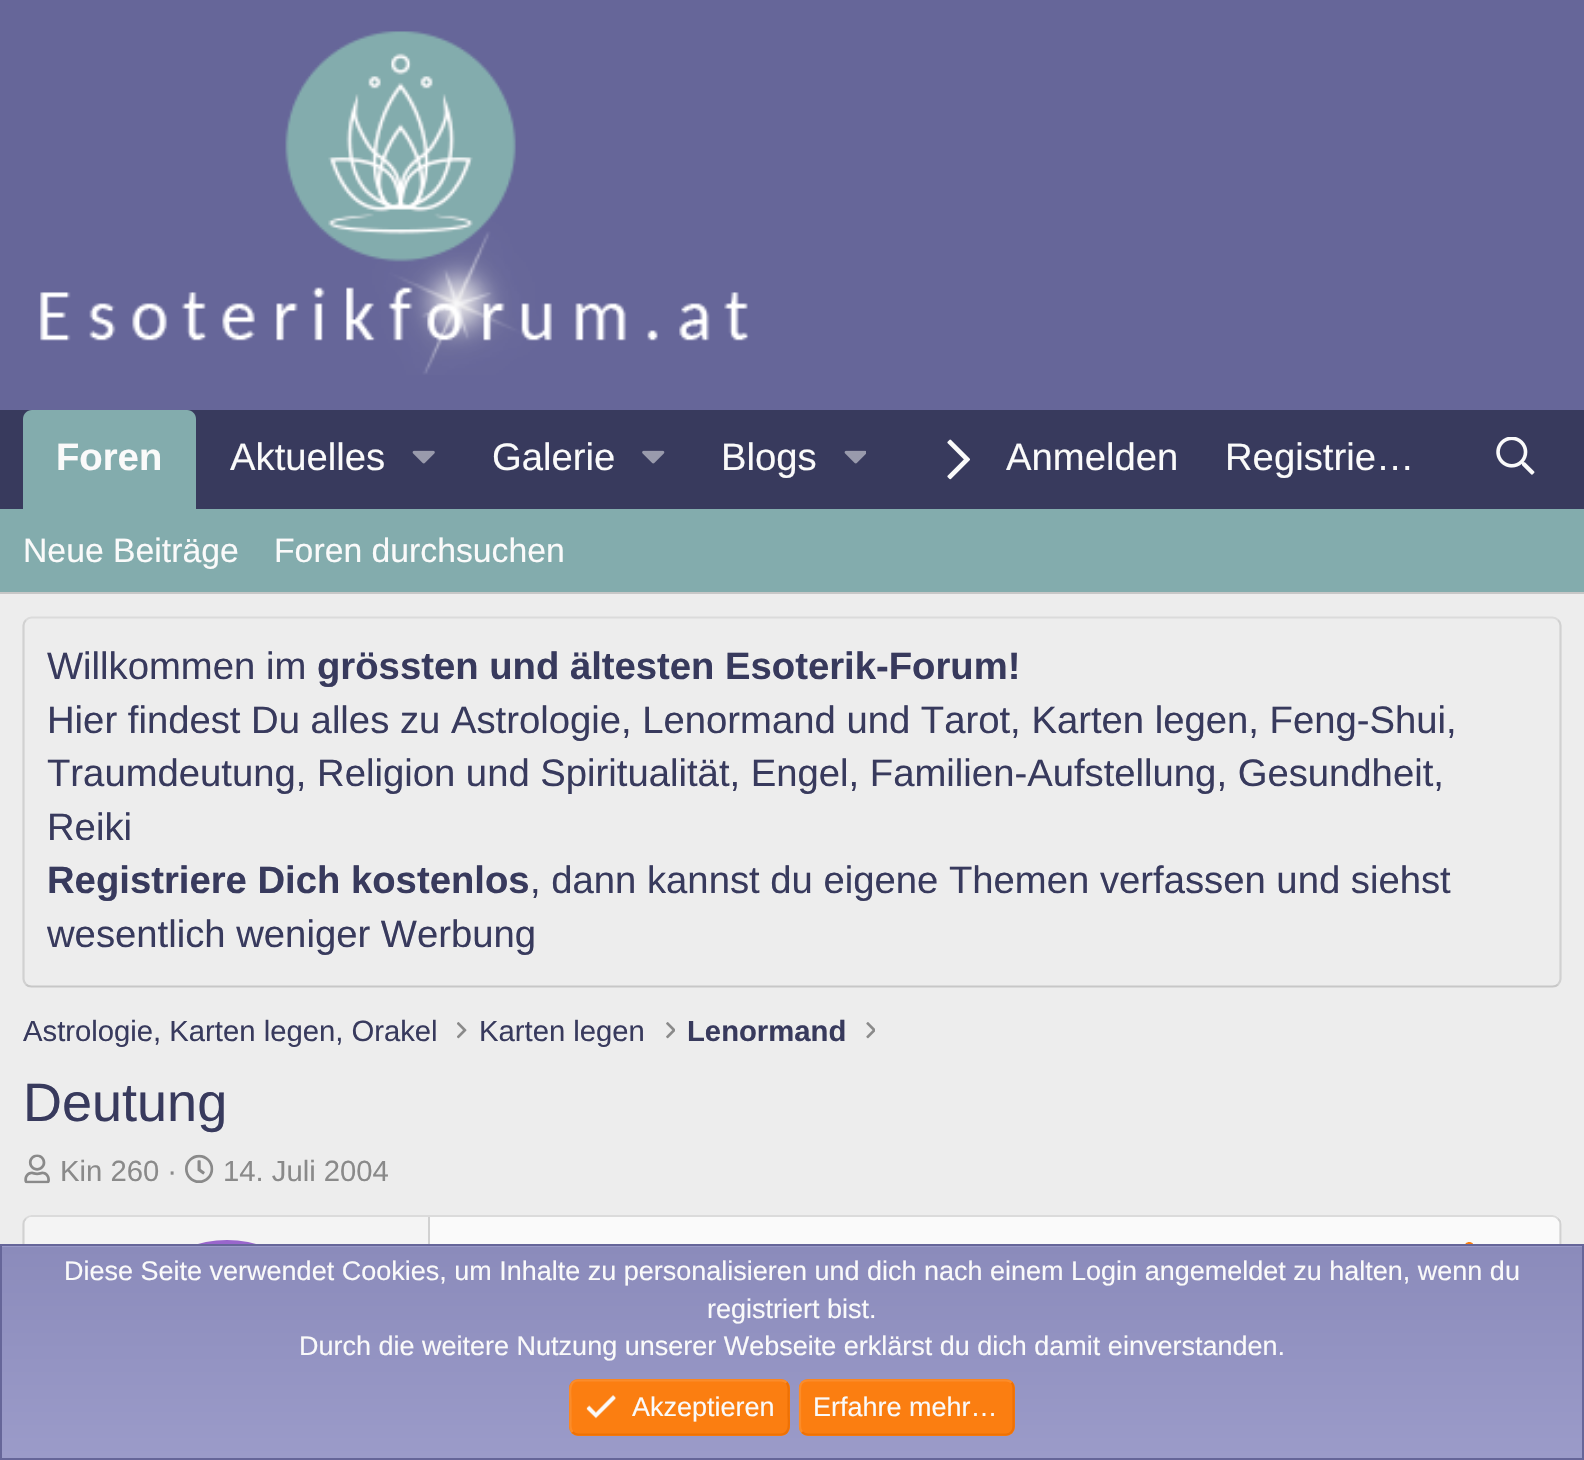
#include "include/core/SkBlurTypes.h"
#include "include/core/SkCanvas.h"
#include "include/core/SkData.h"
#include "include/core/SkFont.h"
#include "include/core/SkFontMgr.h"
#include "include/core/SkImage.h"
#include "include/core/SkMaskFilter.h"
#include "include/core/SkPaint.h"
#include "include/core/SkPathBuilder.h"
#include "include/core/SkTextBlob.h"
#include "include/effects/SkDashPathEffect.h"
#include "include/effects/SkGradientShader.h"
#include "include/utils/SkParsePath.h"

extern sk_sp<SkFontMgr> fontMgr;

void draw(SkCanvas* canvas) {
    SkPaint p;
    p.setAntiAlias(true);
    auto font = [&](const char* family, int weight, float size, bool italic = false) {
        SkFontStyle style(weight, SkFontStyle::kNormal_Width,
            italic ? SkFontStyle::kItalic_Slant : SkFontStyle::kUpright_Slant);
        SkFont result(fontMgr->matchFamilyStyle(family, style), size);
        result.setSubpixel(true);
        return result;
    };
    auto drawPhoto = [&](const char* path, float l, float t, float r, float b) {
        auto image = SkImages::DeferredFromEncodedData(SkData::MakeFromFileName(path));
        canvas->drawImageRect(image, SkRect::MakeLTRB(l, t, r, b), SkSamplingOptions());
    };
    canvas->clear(0xFFEDEDED);
    p.setColor(0xFF666699);
    canvas->drawRect(SkRect::MakeLTRB(0, 0, 1584, 410), p);
    drawPhoto("media/1.png", 40, 31, 750, 375);
    p.setColor(0xFF383A5D);
    canvas->drawRect(SkRect::MakeLTRB(0, 410, 1584, 509), p);
    p.setColor(0xFF83ACAD);
    canvas->drawPath(SkPathBuilder().moveTo(32, 410).lineTo(187, 410).cubicTo(192, 410, 196, 414, 196, 419).lineTo(196, 509).lineTo(23, 509).lineTo(23, 419).cubicTo(23, 414, 27, 410, 32, 410).close().detach(), p);
    auto font1 = font("Liberation Sans", 700, 38.25f);
    p.setColor(0xFFFAFAFA);
    canvas->drawString("Foren", 56, 470, font1, p);
    auto font2 = font("Liberation Sans", 400, 38.25f);
    canvas->drawString("Aktuelles", 230, 470, font2, p);
    drawPhoto("media/2.png", 412, 450, 435, 464);
    canvas->drawString("Galerie", 492, 470, font2, p);
    drawPhoto("media/3.png", 642, 450, 665, 464);
    canvas->drawString("Blogs", 721, 470, font2, p);
    drawPhoto("media/4.png", 844, 450, 866, 464);
    drawPhoto("media/5.png", 947, 439, 970, 480);
    canvas->drawString("Anmelden", 1006, 470, font2, p);
    canvas->drawString("Registrie…", 1225, 470, font2, p);
    drawPhoto("media/6.png", 1496, 437, 1535, 475);
    p.setColor(0xFF83ACAD);
    canvas->drawRect(SkRect::MakeLTRB(0, 509, 1584, 592), p);
    p.setColor(0xFFC7C7C7);
    canvas->drawRect(SkRect::MakeLTRB(0, 592, 1584, 594), p);
    auto font3 = font("Liberation Sans", 400, 33.75f);
    p.setColor(0xFFFAFAFA);
    canvas->drawString("Neue Beiträge", 23, 562, font3, p);
    canvas->drawString("Foren durchsuchen", 274, 562, font3, p);
    p.setStyle(SkPaint::kStroke_Style);
    p.setStrokeWidth(2.2f);
    p.setColor(0xFFDBDBDB);
    canvas->drawPath(SkPathBuilder().moveTo(26, 620).cubicTo(27.5f, 618.5f, 29.5f, 617.5f, 31.5f, 617.5f).lineTo(1552.5f, 617.5f).cubicTo(1554.5f, 617.5f, 1556.5f, 618.5f, 1558, 620).detach(), p);
    p.setColor(0xFFD1D1D1);
    canvas->drawPath(SkPathBuilder().moveTo(1558, 620).cubicTo(1559.5f, 621.5f, 1560.5f, 623.5f, 1560.5f, 625.5f).lineTo(1560.5f, 979).cubicTo(1560.5f, 981, 1559.5f, 983, 1558, 984.5f).detach(), p);
    p.setColor(0xFFC7C7C7);
    canvas->drawPath(SkPathBuilder().moveTo(1558, 984.5f).cubicTo(1556.5f, 986, 1554.5f, 986.5f, 1552.5f, 986.5f).lineTo(31.5f, 986.5f).cubicTo(29.5f, 986.5f, 27.5f, 986, 26, 984.5f).detach(), p);
    p.setColor(0xFFD1D1D1);
    canvas->drawPath(SkPathBuilder().moveTo(26, 984.5f).cubicTo(24.5f, 983, 23.5f, 981, 23.5f, 979).lineTo(23.5f, 625.5f).cubicTo(23.5f, 623.5f, 24.5f, 621.5f, 26, 620).detach(), p);
    p.setStyle(SkPaint::kFill_Style);
    p.setColor(0xFF383A5D);
    canvas->drawString("Willkommen im", 47, 679, font2, p);
    canvas->drawString("grössten und ältesten Esoterik-Forum!", 317, 679, font1, p);
    {
        const struct { const char* s; float x, y; } items[] = {
            {"Hier findest Du alles zu Astrologie, Lenormand und Tarot, Karten legen, Feng-Shui,", 47, 733},
            {"Traumdeutung, Religion und Spiritualität, Engel, Familien-Aufstellung, Gesundheit,", 47, 786},
            {"Reiki", 47, 840},
        };
        for (auto [s, x, y] : items) {
            canvas->drawString(s, x, y, font2, p);
        }
    }
    canvas->drawString("Registriere Dich kostenlos", 47, 893, font1, p);
    canvas->drawString(", dann kannst du eigene Themen verfassen und siehst", 530, 893, font2, p);
    canvas->drawString("wesentlich weniger Werbung", 47, 947, font2, p);
    auto font4 = font("Liberation Sans", 400, 29.25f);
    canvas->drawString("Astrologie, Karten legen, Orakel", 23, 1041, font4, p);
    drawPhoto("media/7.png", 457, 1022, 467, 1039);
    canvas->drawString("Karten legen", 479, 1041, font4, p);
    drawPhoto("media/8.png", 666, 1022, 675, 1039);
    auto font5 = font("Liberation Sans", 700, 29.25f);
    canvas->drawString("Lenormand", 687, 1041, font5, p);
    drawPhoto("media/9.png", 866, 1022, 875, 1039);
    auto font6 = font("Liberation Sans", 400, 54);
    canvas->drawString("Deutung", 23, 1121, font6, p);
    drawPhoto("media/10.png", 24, 1154, 50, 1184);
    p.setColor(0xFF8A8A8A);
    canvas->drawString("Kin 260 ·", 60, 1181, font4, p);
    drawPhoto("media/11.png", 185, 1154, 214, 1183);
    canvas->drawString("14. Juli 2004", 223, 1181, font4, p);
    p.setColor(0xFFFAFAFA);
    canvas->drawRoundRect(SkRect::MakeLTRB(23, 1215, 1562, 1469), 9, 9, p);
    p.setStyle(SkPaint::kStroke_Style);
    p.setColor(0xFFDBDBDB);
    canvas->drawPath(SkPathBuilder().moveTo(26, 1218.5f).cubicTo(27.5f, 1217, 29.5f, 1216, 31.5f, 1216).lineTo(1552.5f, 1216).cubicTo(1554.5f, 1216, 1556.5f, 1217, 1558, 1218.5f).detach(), p);
    p.setColor(0xFFD1D1D1);
    canvas->drawPath(SkPathBuilder().moveTo(1558, 1218.5f).cubicTo(1559.5f, 1220, 1560.5f, 1222, 1560.5f, 1224).lineTo(1560.5f, 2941).cubicTo(1560.5f, 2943, 1559.5f, 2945, 1558, 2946.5f).detach(), p);
    canvas->drawPath(SkPathBuilder().moveTo(26, 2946.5f).cubicTo(24.5f, 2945, 23.5f, 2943, 23.5f, 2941).lineTo(23.5f, 1224).cubicTo(23.5f, 1222, 24.5f, 1220, 26, 1218.5f).detach(), p);
    p.setStyle(SkPaint::kFill_Style);
    p.setColor(0xFFF4F4F4);
    canvas->drawPath(SkPathBuilder().moveTo(32, 1217).lineTo(430, 1217).lineTo(430, 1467).lineTo(32, 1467).cubicTo(28, 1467, 25, 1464, 25, 1460).lineTo(25, 1224).cubicTo(25, 1220, 28, 1217, 32, 1217).close().detach(), p);
    p.setColor(0xFFD1D1D1);
    canvas->drawRect(SkRect::MakeLTRB(428, 1217, 430, 1244), p);
    p.setColor(0xFF9966CC);
    canvas->drawCircle(227, 1348, 108, p);
    drawPhoto("media/12.png", 1465, 1242, 1473, 1244);
    {
        const SkColor colors[] = {0xFF9B9BC9, 0xFF8B8BBB};
        const float stops[] = {0, 1};
        const SkPoint ends[] = {{792, 1247}, {792, 1035}};
        p.setShader(SkGradientShader::MakeLinear(ends, colors, stops, 2, SkTileMode::kClamp));
        p.setAlpha(255);
    }
    canvas->drawRect(SkRect::MakeLTRB(0, 1246, 1584, 1247), p);
    {
        const SkColor colors[] = {0xFF9B9BC9, 0xFF8B8BBB};
        const float stops[] = {0, 1};
        const SkPoint ends[] = {{792, 1458}, {792, 1247}};
        p.setShader(SkGradientShader::MakeLinear(ends, colors, stops, 2, SkTileMode::kClamp));
        p.setAlpha(255);
    }
    canvas->drawRect(SkRect::MakeLTRB(2, 1247, 1582, 1458), p);
    p.setStyle(SkPaint::kStroke_Style);
    p.setStrokeWidth(2);
    p.setShader(nullptr);
    p.setColor(0xFF666699);
    canvas->drawRect(SkRect::MakeLTRB(1, 1245, 1583, 1459), p);
    auto font7 = font("Liberation Sans", 400, 27);
    p.setStyle(SkPaint::kFill_Style);
    p.setColor(0xFFFAFAFA);
    {
        const struct { const char* s; float x, y; } items[] = {
            {"Diese Seite verwendet Cookies, um Inhalte zu personalisieren und dich nach einem Login angemeldet zu halten, wenn du", 64, 1280},
            {"registriert bist.", 707, 1318},
            {"Durch die weitere Nutzung unserer Webseite erklärst du dich damit einverstanden.", 299, 1355},
        };
        for (auto [s, x, y] : items) {
            canvas->drawString(s, x, y, font7, p);
        }
    }
    p.setColor(0xFFFB7E11);
    canvas->drawRoundRect(SkRect::MakeLTRB(569, 1379, 790, 1436), 9, 9, p);
    p.setStyle(SkPaint::kStroke_Style);
    p.setStrokeWidth(2.2f);
    p.setColor(0xFFEE7104);
    canvas->drawPath(SkPathBuilder().moveTo(786.5f, 1382.5f).cubicTo(789.5f, 1386, 788.5f, 1390.5f, 788.5f, 1394.5f).lineTo(788.5f, 1414).cubicTo(788.5f, 1420, 791.5f, 1434.5f, 781, 1434.5f).lineTo(578, 1434.5f).cubicTo(576, 1434.5f, 574, 1433.5f, 572.5f, 1432).detach(), p);
    p.setColor(0xFFFB8C2A);
    canvas->drawPath(SkPathBuilder().moveTo(572.5f, 1432).cubicTo(569.5f, 1429, 570.5f, 1424, 570.5f, 1420).lineTo(570.5f, 1401).cubicTo(570.5f, 1395, 567.5f, 1380.5f, 578, 1380.5f).lineTo(781, 1380.5f).cubicTo(783, 1380.5f, 785, 1381, 786.5f, 1382.5f).detach(), p);
    drawPhoto("media/13.png", 586, 1395, 616, 1419);
    p.setStyle(SkPaint::kFill_Style);
    p.setColor(0xFFFAFAFA);
    canvas->drawString("Akzeptieren", 632, 1416, font7, p);
    p.setColor(0xFFFB7E11);
    canvas->drawRoundRect(SkRect::MakeLTRB(799, 1379, 1015, 1436), 9, 9, p);
    p.setStyle(SkPaint::kStroke_Style);
    p.setColor(0xFFEE7104);
    canvas->drawPath(SkPathBuilder().moveTo(1011.5f, 1382.5f).cubicTo(1013, 1384, 1013.5f, 1386, 1013.5f, 1388).lineTo(1013.5f, 1426.5f).cubicTo(1013.5f, 1428.5f, 1013, 1430.5f, 1011.5f, 1432).cubicTo(1010, 1433.5f, 1008, 1434.5f, 1006, 1434.5f).lineTo(808, 1434.5f).cubicTo(805.5f, 1434.5f, 803.5f, 1433.5f, 802, 1432).detach(), p);
    p.setColor(0xFFFB8C2A);
    canvas->drawPath(SkPathBuilder().moveTo(802, 1432).cubicTo(800.5f, 1430.5f, 800, 1428.5f, 800, 1426.5f).lineTo(800, 1388).cubicTo(800, 1386, 800.5f, 1384, 802, 1382.5f).cubicTo(803.5f, 1381, 805.5f, 1380.5f, 808, 1380.5f).lineTo(1006, 1380.5f).cubicTo(1008, 1380.5f, 1010, 1381, 1011.5f, 1382.5f).detach(), p);
    p.setStyle(SkPaint::kFill_Style);
    p.setColor(0xFFFAFAFA);
    canvas->drawString("Erfahre mehr…", 813, 1416, font7, p);
}
